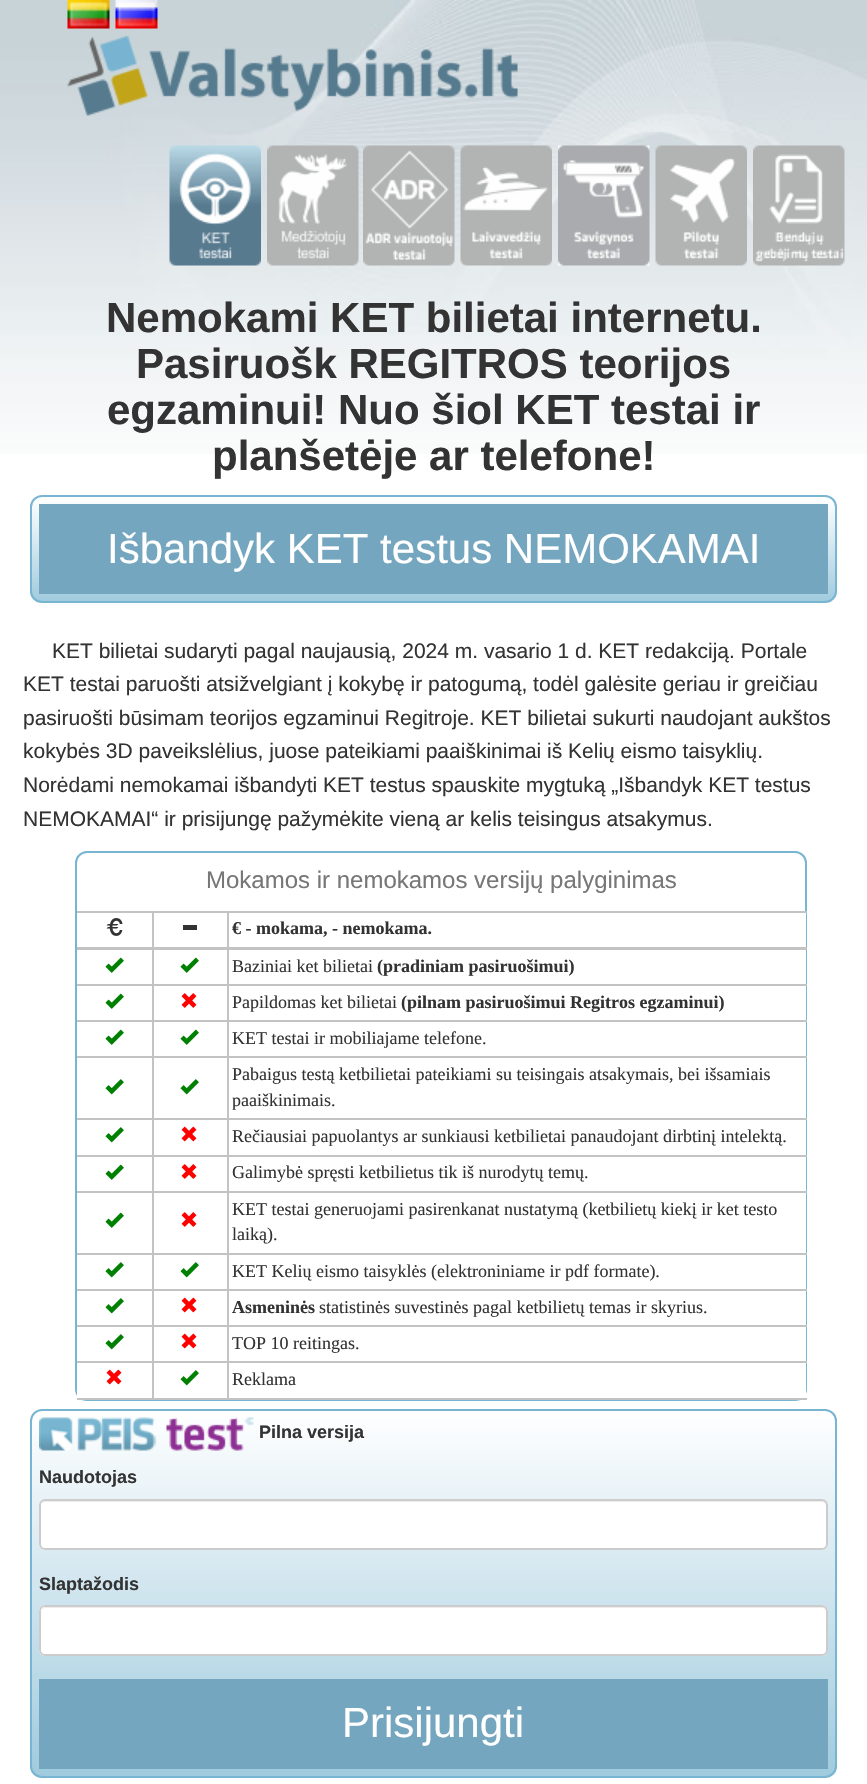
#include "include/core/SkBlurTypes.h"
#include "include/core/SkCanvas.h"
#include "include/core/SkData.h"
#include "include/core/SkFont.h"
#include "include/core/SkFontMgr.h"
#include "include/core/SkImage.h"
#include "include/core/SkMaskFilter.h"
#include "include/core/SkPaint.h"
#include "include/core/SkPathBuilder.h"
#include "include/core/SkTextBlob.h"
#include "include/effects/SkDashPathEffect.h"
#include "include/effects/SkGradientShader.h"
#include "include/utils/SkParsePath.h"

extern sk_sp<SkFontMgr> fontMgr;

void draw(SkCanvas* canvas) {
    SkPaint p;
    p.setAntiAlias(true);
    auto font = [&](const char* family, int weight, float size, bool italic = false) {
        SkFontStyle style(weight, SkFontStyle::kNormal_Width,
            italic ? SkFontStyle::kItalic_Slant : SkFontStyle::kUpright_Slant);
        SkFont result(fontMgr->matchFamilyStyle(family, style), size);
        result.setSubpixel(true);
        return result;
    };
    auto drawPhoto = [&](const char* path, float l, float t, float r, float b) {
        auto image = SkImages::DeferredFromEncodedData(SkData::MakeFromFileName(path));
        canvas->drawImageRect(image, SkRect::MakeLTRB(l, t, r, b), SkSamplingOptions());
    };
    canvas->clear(0xFFFFFFFF);
    drawPhoto("media/1.png", 0, 0, 867, 454);
    drawPhoto("media/2.png", 67, 0, 110, 29);
    drawPhoto("media/3.png", 115, 0, 158, 29);
    drawPhoto("media/4.png", 67, 36, 518, 116);
    drawPhoto("media/5.png", 169, 145, 261, 266);
    drawPhoto("media/6.png", 267, 145, 359, 266);
    drawPhoto("media/7.png", 363, 145, 455, 266);
    drawPhoto("media/8.png", 460, 145, 552, 266);
    drawPhoto("media/9.png", 558, 145, 650, 266);
    drawPhoto("media/10.png", 655, 145, 747, 266);
    drawPhoto("media/11.png", 753, 145, 845, 266);
    auto font1 = font("Liberation Sans", 700, 42);
    p.setColor(0xFF333333);
    {
        const struct { const char* s; float x, y; } items[] = {
            {"Nemokami KET bilietai internetu.", 106, 332},
            {"Pasiruošk REGITROS teorijos", 136, 378},
            {"egzaminui! Nuo šiol KET testai ir", 107, 424},
            {"planšetėje ar telefone!", 212, 470},
        };
        for (auto [s, x, y] : items) {
            canvas->drawString(s, x, y, font1, p);
        }
    }
    canvas->save();
    canvas->clipPath(SkPathBuilder().moveTo(42, 495).lineTo(825, 495).cubicTo(831.5f, 495, 837, 500.5f, 837, 507).lineTo(837, 591).cubicTo(837, 597.5f, 831.5f, 603, 825, 603).lineTo(42, 603).cubicTo(35.5f, 603, 30, 597.5f, 30, 591).lineTo(30, 507).cubicTo(30, 500.5f, 35.5f, 495, 42, 495).close().detach(), true);
    {
        const SkColor colors[] = {0xFFFFFFFF, 0xFFA0CBDE};
        const float stops[] = {0, 1};
        const SkPoint ends[] = {{32, 497}, {32, 602}};
        p.setShader(SkGradientShader::MakeLinear(ends, colors, stops, 2, SkTileMode::kClamp));
        p.setAlpha(255);
    }
    canvas->drawRect(SkRect::MakeLTRB(30, 497, 837, 602), p);
    canvas->restore();
    p.setStyle(SkPaint::kStroke_Style);
    p.setStrokeWidth(2);
    p.setShader(nullptr);
    p.setColor(0xFF78B5D2);
    canvas->drawRoundRect(SkRect::MakeLTRB(31, 496, 836, 602), 11, 11, p);
    p.setStyle(SkPaint::kFill_Style);
    p.setColor(0xFF75A6BF);
    canvas->drawRect(SkRect::MakeLTRB(39, 504, 828, 594), p);
    auto font2 = font("Liberation Sans", 400, 42);
    p.setColor(0xFFFFFFFF);
    canvas->drawString("Išbandyk KET testus NEMOKAMAI", 107, 563, font2, p);
    auto font3 = font("Liberation Sans", 400, 21);
    p.setColor(0xFF333333);
    {
        const struct { const char* s; float x, y; } items[] = {
            {"KET bilietai sudaryti pagal naujausią, 2024 m. vasario 1 d. KET redakciją. Portale", 52, 658},
            {"KET testai paruošti atsižvelgiant į kokybę ir patogumą, todėl galėsite geriau ir greičiau", 23, 691},
            {"pasiruošti būsimam teorijos egzaminui Regitroje. KET bilietai sukurti naudojant aukštos", 23, 725},
            {"kokybės 3D paveikslėlius, juose pateikiami paaiškinimai iš Kelių eismo taisyklių.", 23, 758},
            {"Norėdami nemokamai išbandyti KET testus spauskite mygtuką „Išbandyk KET testus", 23, 792},
            {"NEMOKAMAI“ ir prisijungę pažymėkite vieną ar kelis teisingus atsakymus.", 23, 826},
        };
        for (auto [s, x, y] : items) {
            canvas->drawString(s, x, y, font3, p);
        }
    }
    p.setStyle(SkPaint::kStroke_Style);
    p.setColor(0xFF78B5D2);
    canvas->drawRoundRect(SkRect::MakeLTRB(76, 852, 806, 1400), 11, 11, p);
    auto font4 = font("Liberation Sans", 400, 24);
    p.setStyle(SkPaint::kFill_Style);
    p.setColor(0xFF777777);
    canvas->drawString("Mokamos ir nemokamos versijų palyginimas", 206, 888, font4, p);
    {
        const struct { float l, t, r, b; SkColor color; } items[] = {
            {227, 911, 807, 913, 0xFFC3C3C3},
            {227, 947, 807, 950, 0xFFC3C3C3},
            {227, 911, 229, 948, 0xFFC3C3C3},
            {152, 911, 228, 913, 0xFFC3C3C3},
            {152, 947, 228, 948, 0xFFC3C3C3},
            {152, 911, 154, 948, 0xFFC3C3C3},
            {77, 911, 153, 913, 0xFFC3C3C3},
            {77, 947, 153, 948, 0xFFC3C3C3},
        };
        for (auto [l, t, r, b, color] : items) {
            p.setColor(color);
            canvas->drawRect(SkRect::MakeLTRB(l, t, r, b), p);
        }
    }
    drawPhoto("media/12.png", 106, 918, 123, 936);
    p.setColor(0xFF333333);
    canvas->drawRect(SkRect::MakeLTRB(183, 925, 197, 930), p);
    p.setColor(0xFFFFFFFF);
    canvas->drawRect(SkRect::MakeLTRB(805, 913, 806, 947), p);
    auto font5 = font("Liberation Serif", 700, 18);
    p.setColor(0xFF333333);
    canvas->drawString("€ - mokama, - nemokama.", 232, 934, font5, p);
    {
        const struct { float l, t, r, b; SkColor color; } items[] = {
            {227, 984, 807, 986, 0xFFC3C3C3},
            {227, 1020, 807, 1022, 0xFFC3C3C3},
            {227, 1056, 807, 1058, 0xFFC3C3C3},
            {227, 1118, 807, 1120, 0xFFC3C3C3},
            {227, 1155, 807, 1157, 0xFFC3C3C3},
            {227, 1191, 807, 1193, 0xFFC3C3C3},
            {227, 1253, 807, 1255, 0xFFC3C3C3},
            {227, 1289, 807, 1291, 0xFFC3C3C3},
            {227, 1325, 807, 1327, 0xFFC3C3C3},
            {227, 1361, 807, 1363, 0xFFC3C3C3},
            {227, 1398, 807, 1400, 0xFFC3C3C3},
            {227, 1361, 229, 1400, 0xFFC3C3C3},
            {152, 1361, 228, 1363, 0xFFC3C3C3},
            {227, 1325, 229, 1362, 0xFFC3C3C3},
            {152, 1325, 228, 1327, 0xFFC3C3C3},
            {227, 1289, 229, 1326, 0xFFC3C3C3},
            {152, 1289, 228, 1291, 0xFFC3C3C3},
            {227, 1253, 229, 1290, 0xFFC3C3C3},
            {152, 1253, 228, 1255, 0xFFC3C3C3},
            {227, 1191, 229, 1254, 0xFFC3C3C3},
            {152, 1191, 228, 1193, 0xFFC3C3C3},
            {227, 1155, 229, 1193, 0xFFC3C3C3},
            {152, 1155, 228, 1157, 0xFFC3C3C3},
            {227, 1118, 229, 1157, 0xFFC3C3C3},
            {152, 1118, 228, 1120, 0xFFC3C3C3},
            {227, 1056, 229, 1119, 0xFFC3C3C3},
            {152, 1056, 228, 1058, 0xFFC3C3C3},
            {227, 1020, 229, 1058, 0xFFC3C3C3},
            {152, 1020, 228, 1022, 0xFFC3C3C3},
            {227, 984, 229, 1022, 0xFFC3C3C3},
            {152, 984, 228, 986, 0xFFC3C3C3},
            {227, 948, 229, 986, 0xFFC3C3C3},
            {152, 948, 228, 950, 0xFFC3C3C3},
            {152, 1398, 228, 1400, 0xFFC3C3C3},
            {152, 1361, 154, 1400, 0xFFC3C3C3},
            {77, 1361, 153, 1363, 0xFFC3C3C3},
            {152, 1325, 154, 1362, 0xFFC3C3C3},
            {77, 1325, 153, 1327, 0xFFC3C3C3},
            {152, 1289, 154, 1326, 0xFFC3C3C3},
            {77, 1289, 153, 1291, 0xFFC3C3C3},
            {152, 1253, 154, 1290, 0xFFC3C3C3},
            {77, 1253, 153, 1255, 0xFFC3C3C3},
            {152, 1191, 154, 1254, 0xFFC3C3C3},
            {77, 1191, 153, 1193, 0xFFC3C3C3},
            {152, 1155, 154, 1193, 0xFFC3C3C3},
            {77, 1155, 153, 1157, 0xFFC3C3C3},
            {152, 1118, 154, 1157, 0xFFC3C3C3},
            {77, 1118, 153, 1120, 0xFFC3C3C3},
            {152, 1056, 154, 1119, 0xFFC3C3C3},
            {77, 1056, 153, 1058, 0xFFC3C3C3},
            {152, 1020, 154, 1058, 0xFFC3C3C3},
            {77, 1020, 153, 1022, 0xFFC3C3C3},
            {152, 984, 154, 1022, 0xFFC3C3C3},
            {77, 984, 153, 986, 0xFFC3C3C3},
            {152, 948, 154, 986, 0xFFC3C3C3},
            {77, 948, 153, 950, 0xFFC3C3C3},
        };
        for (auto [l, t, r, b, color] : items) {
            p.setColor(color);
            canvas->drawRect(SkRect::MakeLTRB(l, t, r, b), p);
        }
    }
    drawPhoto("media/13.png", 105, 957, 124, 973);
    drawPhoto("media/13.png", 180, 957, 199, 973);
    p.setColor(0xFFFFFFFF);
    canvas->drawRect(SkRect::MakeLTRB(805, 950, 806, 984), p);
    auto font6 = font("Liberation Serif", 400, 18);
    p.setColor(0xFF333333);
    canvas->drawString("Baziniai ket bilietai", 232, 972, font6, p);
    canvas->drawString("(pradiniam pasiruošimui)", 377, 972, font5, p);
    drawPhoto("media/13.png", 105, 993, 124, 1009);
    drawPhoto("media/14.png", 181, 993, 197, 1008);
    p.setColor(0xFFFFFFFF);
    canvas->drawRect(SkRect::MakeLTRB(805, 986, 806, 1020), p);
    p.setColor(0xFF333333);
    canvas->drawString("Papildomas ket bilietai", 232, 1008, font6, p);
    canvas->drawString("(pilnam pasiruošimui Regitros egzaminui)", 401, 1008, font5, p);
    drawPhoto("media/13.png", 105, 1029, 124, 1045);
    drawPhoto("media/13.png", 180, 1029, 199, 1045);
    p.setColor(0xFFFFFFFF);
    canvas->drawRect(SkRect::MakeLTRB(805, 1022, 806, 1056), p);
    p.setColor(0xFF333333);
    canvas->drawString("KET testai ir mobiliajame telefone.", 232, 1044, font6, p);
    drawPhoto("media/15.png", 105, 1079, 124, 1095);
    drawPhoto("media/15.png", 180, 1079, 199, 1095);
    p.setColor(0xFFFFFFFF);
    canvas->drawRect(SkRect::MakeLTRB(805, 1058, 806, 1118), p);
    p.setColor(0xFF333333);
    canvas->drawString("Pabaigus testą ketbilietai pateikiami su teisingais atsakymais, bei išsamiais", 232, 1080, font6, p);
    canvas->drawString("paaiškinimais.", 232, 1106, font6, p);
    drawPhoto("media/15.png", 105, 1127, 124, 1143);
    drawPhoto("media/16.png", 181, 1126, 197, 1142);
    p.setColor(0xFFFFFFFF);
    canvas->drawRect(SkRect::MakeLTRB(805, 1120, 806, 1155), p);
    p.setColor(0xFF333333);
    canvas->drawString("Rečiausiai papuolantys ar sunkiausi ketbilietai panaudojant dirbtinį intelektą.", 232, 1142, font6, p);
    drawPhoto("media/13.png", 105, 1164, 124, 1180);
    drawPhoto("media/14.png", 181, 1164, 197, 1179);
    p.setColor(0xFFFFFFFF);
    canvas->drawRect(SkRect::MakeLTRB(805, 1157, 806, 1191), p);
    p.setColor(0xFF333333);
    canvas->drawString("Galimybė spręsti ketbilietus tik iš nurodytų temų.", 232, 1178, font6, p);
    drawPhoto("media/13.png", 105, 1212, 124, 1228);
    drawPhoto("media/14.png", 181, 1212, 197, 1227);
    p.setColor(0xFFFFFFFF);
    canvas->drawRect(SkRect::MakeLTRB(805, 1193, 806, 1253), p);
    p.setColor(0xFF333333);
    canvas->drawString("KET testai generuojami pasirenkanat nustatymą (ketbilietų kiekį ir ket testo", 232, 1215, font6, p);
    canvas->drawString("laiką).", 232, 1240, font6, p);
    drawPhoto("media/15.png", 105, 1262, 124, 1278);
    drawPhoto("media/15.png", 180, 1262, 199, 1278);
    p.setColor(0xFFFFFFFF);
    canvas->drawRect(SkRect::MakeLTRB(805, 1255, 806, 1289), p);
    p.setColor(0xFF333333);
    canvas->drawString("KET Kelių eismo taisyklės (elektroniniame ir pdf formate).", 232, 1277, font6, p);
    drawPhoto("media/15.png", 105, 1298, 124, 1314);
    drawPhoto("media/16.png", 181, 1297, 197, 1313);
    p.setColor(0xFFFFFFFF);
    canvas->drawRect(SkRect::MakeLTRB(805, 1291, 806, 1325), p);
    p.setColor(0xFF333333);
    canvas->drawString("Asmeninės", 232, 1313, font5, p);
    canvas->drawString("statistinės suvestinės pagal ketbilietų temas ir skyrius.", 319, 1313, font6, p);
    drawPhoto("media/15.png", 105, 1334, 124, 1350);
    drawPhoto("media/16.png", 181, 1333, 197, 1349);
    p.setColor(0xFFFFFFFF);
    canvas->drawRect(SkRect::MakeLTRB(805, 1327, 806, 1361), p);
    p.setColor(0xFF333333);
    canvas->drawString("TOP 10 reitingas.", 232, 1349, font6, p);
    p.setColor(0xFFFFFFFF);
    canvas->drawRect(SkRect::MakeLTRB(77, 1389, 83, 1398), p);
    p.setColor(0xFFC3C3C3);
    canvas->drawRect(SkRect::MakeLTRB(77, 1398, 153, 1400), p);
    drawPhoto("media/16.png", 106, 1369, 122, 1385);
    drawPhoto("media/15.png", 180, 1370, 199, 1386);
    p.setColor(0xFFFFFFFF);
    canvas->drawRect(SkRect::MakeLTRB(799, 1363, 806, 1398), p);
    p.setColor(0xFF333333);
    canvas->drawString("Reklama", 232, 1385, font6, p);
    canvas->save();
    canvas->clipPath(SkPathBuilder().moveTo(42, 1409).lineTo(825, 1409).cubicTo(831.5f, 1409, 837, 1414.5f, 837, 1421).lineTo(837, 1766).cubicTo(837, 1772.5f, 831.5f, 1778, 825, 1778).lineTo(42, 1778).cubicTo(35.5f, 1778, 30, 1772.5f, 30, 1766).lineTo(30, 1421).cubicTo(30, 1414.5f, 35.5f, 1409, 42, 1409).close().detach(), true);
    {
        const SkColor colors[] = {0xFFFFFFFF, 0xFFA0CBDE};
        const float stops[] = {0, 1};
        const SkPoint ends[] = {{32, 1410}, {32, 1776}};
        p.setShader(SkGradientShader::MakeLinear(ends, colors, stops, 2, SkTileMode::kClamp));
        p.setAlpha(255);
    }
    canvas->drawRect(SkRect::MakeLTRB(30, 1410, 837, 1776), p);
    canvas->restore();
    p.setStyle(SkPaint::kStroke_Style);
    p.setShader(nullptr);
    p.setColor(0xFF78B5D2);
    canvas->drawRoundRect(SkRect::MakeLTRB(31, 1410, 836, 1777), 11, 11, p);
    drawPhoto("media/17.png", 39, 1417, 254, 1451);
    auto font7 = font("Liberation Sans", 700, 18);
    p.setStyle(SkPaint::kFill_Style);
    p.setColor(0xFF333333);
    canvas->drawString("Pilna versija", 259, 1438, font7, p);
    canvas->drawString("Naudotojas", 39, 1483, font7, p);
    p.setColor(0xFFFFFFFF);
    canvas->drawRoundRect(SkRect::MakeLTRB(39, 1499, 828, 1550), 6, 6, p);
    p.setColor(0xFFECECEC);
    canvas->drawPath(SkPathBuilder().moveTo(45, 1502).lineTo(822, 1502).cubicTo(824, 1502, 826, 1504, 826, 1506).lineTo(826, 1546).cubicTo(827, 1545, 827, 1544, 827, 1543).lineTo(827, 1505).cubicTo(827, 1502, 825, 1500, 822, 1500).lineTo(46, 1500).cubicTo(44, 1500, 42, 1502, 41, 1504).cubicTo(42, 1503, 44, 1502, 45, 1502).close().detach(), p);
    p.setStyle(SkPaint::kStroke_Style);
    p.setColor(0xFFCCCCCC);
    canvas->drawRoundRect(SkRect::MakeLTRB(40, 1500, 827, 1549), 5, 5, p);
    p.setStyle(SkPaint::kFill_Style);
    p.setColor(0xFF333333);
    canvas->drawString("Slaptažodis", 39, 1590, font7, p);
    p.setColor(0xFFFFFFFF);
    canvas->drawRoundRect(SkRect::MakeLTRB(39, 1605, 828, 1656), 6, 6, p);
    p.setColor(0xFFECECEC);
    canvas->drawPath(SkPathBuilder().moveTo(45, 1608).lineTo(822, 1608).cubicTo(824, 1608, 826, 1610, 826, 1612).lineTo(826, 1653).cubicTo(827, 1652, 827, 1651, 827, 1650).lineTo(827, 1612).cubicTo(827, 1609, 825, 1607, 822, 1607).lineTo(46, 1607).cubicTo(44, 1607, 43, 1608, 42, 1609).close().detach(), p);
    p.setStyle(SkPaint::kStroke_Style);
    p.setColor(0xFFCCCCCC);
    canvas->drawRoundRect(SkRect::MakeLTRB(40, 1606, 827, 1655), 5, 5, p);
    p.setStyle(SkPaint::kFill_Style);
    p.setColor(0xFF75A6BF);
    canvas->drawRect(SkRect::MakeLTRB(39, 1679, 828, 1769), p);
    p.setColor(0xFFFFFFFF);
    canvas->drawString("Prisijungti", 342, 1737, font2, p);
}
